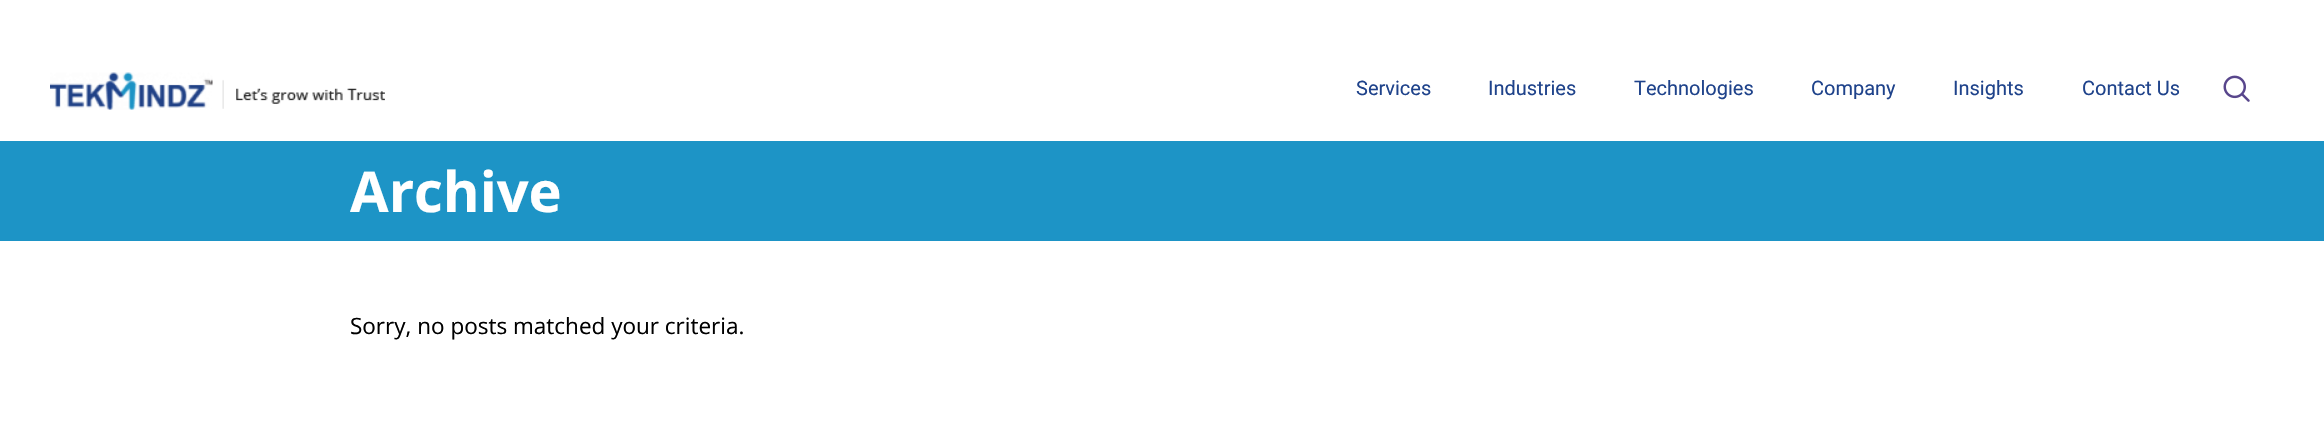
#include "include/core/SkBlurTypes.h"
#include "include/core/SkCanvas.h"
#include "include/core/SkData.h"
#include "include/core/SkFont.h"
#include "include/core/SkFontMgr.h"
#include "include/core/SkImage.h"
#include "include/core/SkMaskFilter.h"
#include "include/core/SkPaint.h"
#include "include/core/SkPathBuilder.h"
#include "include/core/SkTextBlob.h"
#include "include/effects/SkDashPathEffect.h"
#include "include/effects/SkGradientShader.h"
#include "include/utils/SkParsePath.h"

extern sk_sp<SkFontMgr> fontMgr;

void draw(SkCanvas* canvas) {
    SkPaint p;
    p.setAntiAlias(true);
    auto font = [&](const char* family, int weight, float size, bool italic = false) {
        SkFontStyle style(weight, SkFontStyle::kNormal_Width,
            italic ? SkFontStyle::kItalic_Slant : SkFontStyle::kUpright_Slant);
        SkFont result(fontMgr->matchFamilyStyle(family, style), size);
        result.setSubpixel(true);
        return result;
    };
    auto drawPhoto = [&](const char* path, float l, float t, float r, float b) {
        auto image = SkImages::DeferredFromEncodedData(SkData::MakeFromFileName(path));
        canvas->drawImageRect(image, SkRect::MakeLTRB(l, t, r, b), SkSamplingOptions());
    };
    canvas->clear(0xFFFFFFFF);
    drawPhoto("media/1.png", 50, 72, 385, 110);
    auto font1 = font("Roboto", 400, 20);
    p.setColor(0xFF1F438B);
    {
        const struct { const char* s; float x, y; } items[] = {
            {"Services", 1356, 95},
            {"Industries", 1488, 95},
            {"Technologies", 1634, 95},
            {"Company", 1811, 95},
            {"Insights", 1953, 95},
            {"Contact Us", 2082, 95},
        };
        for (auto [s, x, y] : items) {
            canvas->drawString(s, x, y, font1, p);
        }
    }
    drawPhoto("media/2.png", 2223, 75, 2250, 102);
    p.setColor(0xFF1D94C6);
    canvas->drawRect(SkRect::MakeLTRB(0, 141, 2324, 241), p);
    auto font2 = font("Open Sans", 700, 56);
    p.setColor(0xFFFFFFFF);
    canvas->drawString("Archive", 350, 212, font2, p);
    auto font3 = font("Open Sans", 400, 22.5f);
    p.setColor(0xFF000000);
    canvas->drawString("Sorry, no posts matched your criteria.", 350, 334, font3, p);
}
